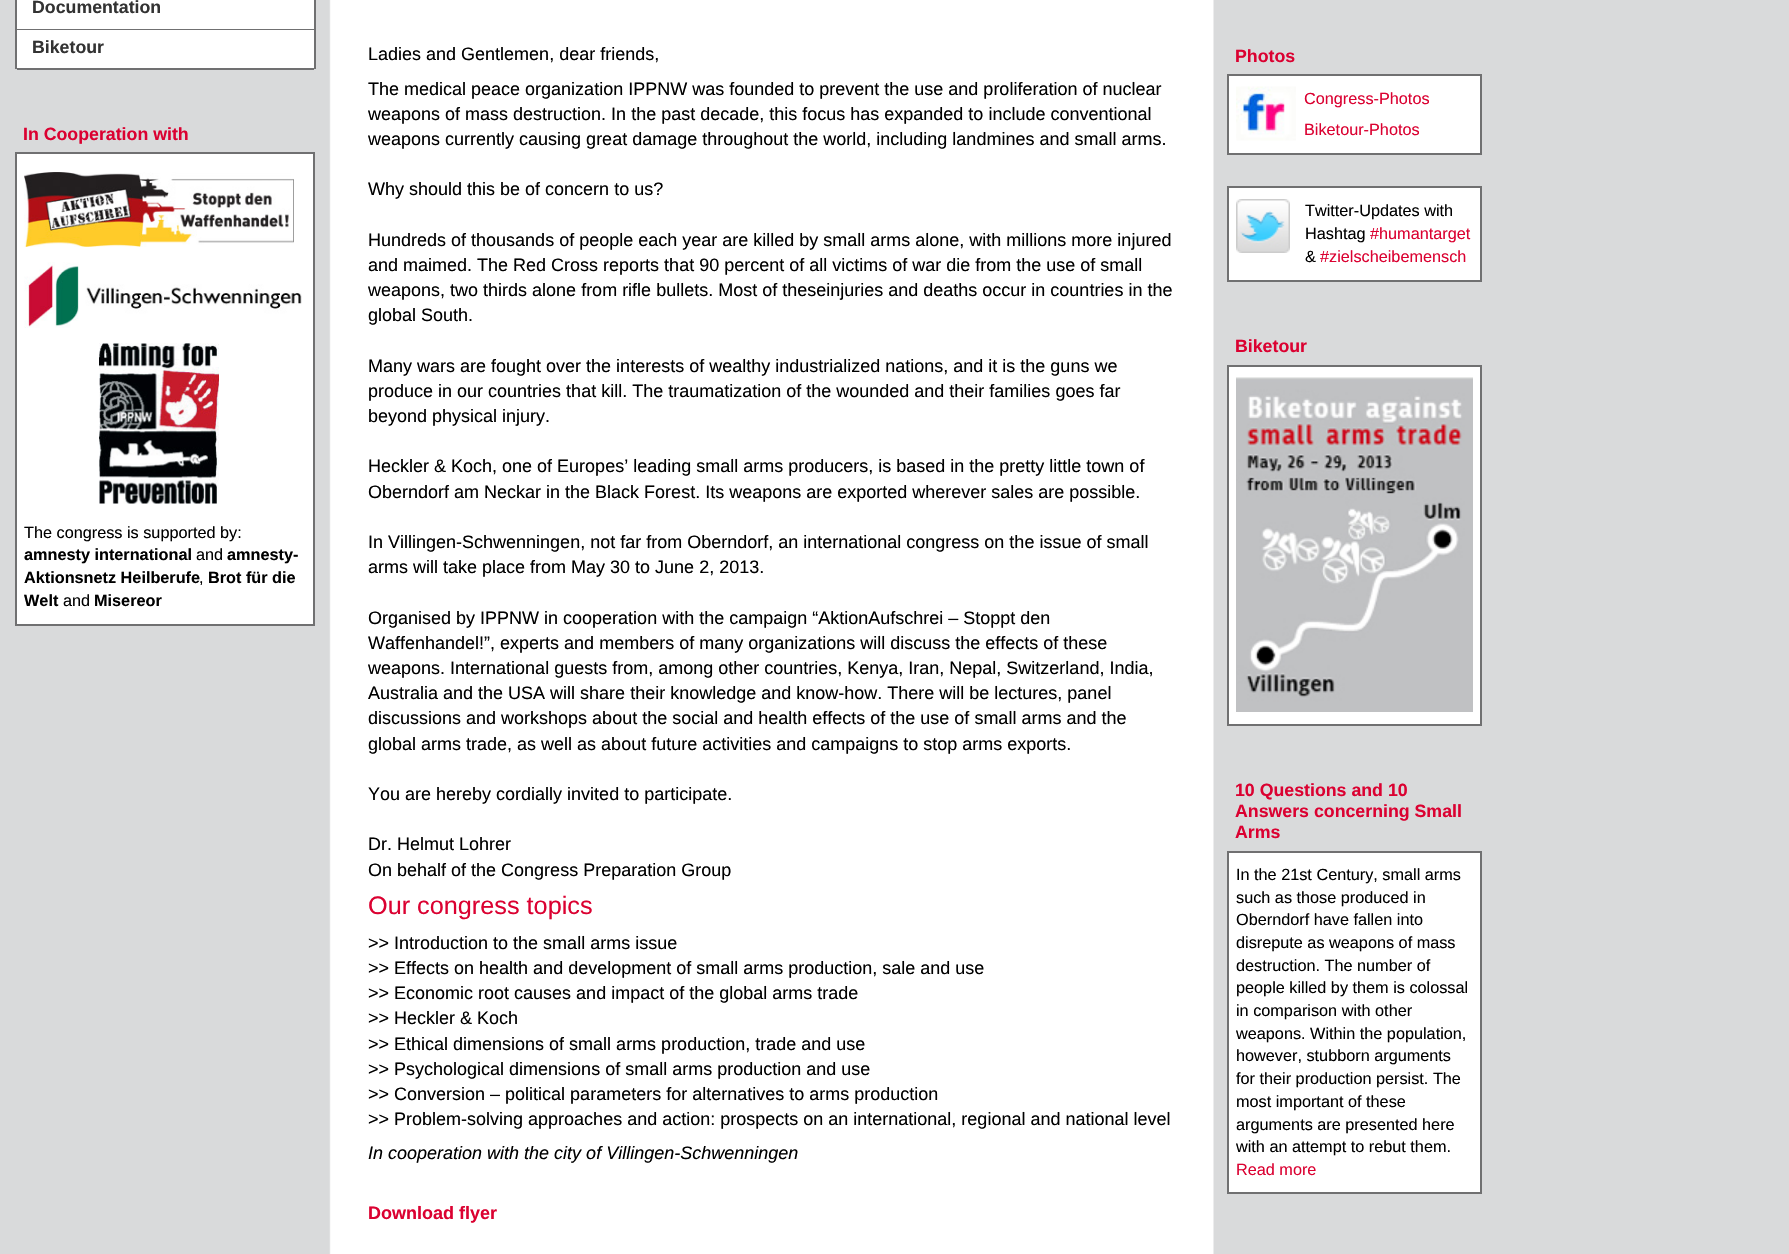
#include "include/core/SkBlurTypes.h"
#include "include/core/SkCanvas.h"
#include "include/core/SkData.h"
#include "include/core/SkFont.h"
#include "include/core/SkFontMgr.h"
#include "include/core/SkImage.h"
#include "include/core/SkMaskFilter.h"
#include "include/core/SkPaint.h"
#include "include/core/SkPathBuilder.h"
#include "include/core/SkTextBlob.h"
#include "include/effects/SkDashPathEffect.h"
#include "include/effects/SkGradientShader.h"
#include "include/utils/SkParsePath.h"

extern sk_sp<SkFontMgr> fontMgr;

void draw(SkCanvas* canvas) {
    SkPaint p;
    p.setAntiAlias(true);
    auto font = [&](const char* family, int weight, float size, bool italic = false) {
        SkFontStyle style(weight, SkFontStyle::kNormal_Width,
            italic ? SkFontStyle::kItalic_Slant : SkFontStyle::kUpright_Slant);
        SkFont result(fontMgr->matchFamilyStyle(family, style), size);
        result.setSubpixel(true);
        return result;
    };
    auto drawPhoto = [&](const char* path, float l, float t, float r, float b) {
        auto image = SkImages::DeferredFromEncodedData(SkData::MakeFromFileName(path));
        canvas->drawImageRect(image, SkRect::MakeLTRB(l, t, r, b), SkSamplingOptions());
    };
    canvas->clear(0xFFFFFFFF);
    drawPhoto("media/1.png", 0, 0, 1789, 1254);
    {
        const struct { float l, t, r, b; SkColor color; } items[] = {
            {17, 0, 314, 29, 0xFFFFFFFF},
            {314, 0, 316, 69, 0xFF707071},
            {15, 0, 17, 69, 0xFF707071},
            {17, 29, 314, 30, 0xFF707071},
        };
        for (auto [l, t, r, b, color] : items) {
            p.setColor(color);
            canvas->drawRect(SkRect::MakeLTRB(l, t, r, b), p);
        }
    }
    auto font1 = font("Liberation Sans", 700, 17.75f);
    p.setColor(0xFF333333);
    canvas->drawString("Documentation", 32, 13, font1, p);
    p.setColor(0xFFFFFFFF);
    canvas->drawRect(SkRect::MakeLTRB(17, 30, 314, 68), p);
    p.setColor(0xFF707071);
    canvas->drawRect(SkRect::MakeLTRB(17, 68, 314, 70), p);
    p.setColor(0xFF333333);
    canvas->drawString("Biketour", 32, 53, font1, p);
    p.setColor(0xFFDB0131);
    canvas->drawString("In Cooperation with", 23, 140, font1, p);
    p.setColor(0xFFFFFFFF);
    canvas->drawRect(SkRect::MakeLTRB(16, 153, 314, 625), p);
    p.setStyle(SkPaint::kStroke_Style);
    p.setStrokeWidth(2);
    p.setColor(0xFF707071);
    canvas->drawRect(SkRect::MakeLTRB(16, 153, 314, 625), p);
    drawPhoto("media/2.png", 24, 172, 294, 247);
    drawPhoto("media/3.png", 24, 262, 302, 328);
    drawPhoto("media/4.png", 99, 343, 219, 504);
    auto font2 = font("Liberation Sans", 400, 16.25f);
    p.setStyle(SkPaint::kFill_Style);
    p.setColor(0xFF000000);
    canvas->drawString("The congress is supported by:", 24, 538, font2, p);
    auto font3 = font("Liberation Sans", 700, 16.25f);
    canvas->drawString("amnesty international", 24, 560, font3, p);
    canvas->drawString("and", 196, 560, font2, p);
    canvas->drawString("amnesty-", 227, 560, font3, p);
    canvas->drawString("Aktionsnetz Heilberufe", 24, 583, font3, p);
    canvas->drawString(",", 199, 583, font2, p);
    canvas->drawString("Brot für die", 208, 583, font3, p);
    canvas->drawString("Welt", 24, 606, font3, p);
    canvas->drawString("and", 63, 606, font2, p);
    canvas->drawString("Misereor", 94, 606, font3, p);
    auto font4 = font("Liberation Sans", 400, 18);
    {
        const struct { const char* s; float x, y; } items[] = {
            {"Ladies and Gentlemen, dear friends,", 368, 60},
            {"The medical peace organization IPPNW was founded to prevent the use and proliferation of nuclear", 368, 95},
            {"weapons of mass destruction. In the past decade, this focus has expanded to include conventional", 368, 120},
            {"weapons currently causing great damage throughout the world, including landmines and small arms.", 368, 145},
            {"Why should this be of concern to us?", 368, 195},
            {"Hundreds of thousands of people each year are killed by small arms alone, with millions more injured", 368, 246},
            {"and maimed. The Red Cross reports that 90 percent of all victims of war die from the use of small", 368, 271},
            {"weapons, two thirds alone from rifle bullets. Most of theseinjuries and deaths occur in countries in the", 368, 296},
            {"global South.", 368, 321},
            {"Many wars are fought over the interests of wealthy industrialized nations, and it is the guns we", 368, 372},
            {"produce in our countries that kill. The traumatization of the wounded and their families goes far", 368, 397},
            {"beyond physical injury.", 368, 422},
            {"Heckler & Koch, one of Europes’ leading small arms producers, is based in the pretty little town of", 368, 472},
            {"Oberndorf am Neckar in the Black Forest. Its weapons are exported wherever sales are possible.", 368, 498},
            {"In Villingen-Schwenningen, not far from Oberndorf, an international congress on the issue of small", 368, 548},
            {"arms will take place from May 30 to June 2, 2013.", 368, 573},
            {"Organised by IPPNW in cooperation with the campaign “AktionAufschrei – Stoppt den", 368, 624},
            {"Waffenhandel!”, experts and members of many organizations will discuss the effects of these", 368, 649},
            {"weapons. International guests from, among other countries, Kenya, Iran, Nepal, Switzerland, India,", 368, 674},
            {"Australia and the USA will share their knowledge and know-how. There will be lectures, panel", 368, 699},
            {"discussions and workshops about the social and health effects of the use of small arms and the", 368, 724},
            {"global arms trade, as well as about future activities and campaigns to stop arms exports.", 368, 750},
            {"You are hereby cordially invited to participate.", 368, 800},
            {"Dr. Helmut Lohrer", 368, 850},
            {"On behalf of the Congress Preparation Group", 368, 876},
        };
        for (auto [s, x, y] : items) {
            canvas->drawString(s, x, y, font4, p);
        }
    }
    auto font5 = font("Liberation Sans", 400, 25.25f);
    p.setColor(0xFFDB0131);
    canvas->drawString("Our congress topics", 368, 914, font5, p);
    p.setColor(0xFF000000);
    {
        const struct { const char* s; float x, y; } items[] = {
            {">> Introduction to the small arms issue", 368, 949},
            {">> Effects on health and development of small arms production, sale and use", 368, 974},
            {">> Economic root causes and impact of the global arms trade", 368, 999},
            {">> Heckler & Koch", 368, 1024},
            {">> Ethical dimensions of small arms production, trade and use", 368, 1050},
            {">> Psychological dimensions of small arms production and use", 368, 1075},
            {">> Conversion – political parameters for alternatives to arms production", 368, 1100},
            {">> Problem-solving approaches and action: prospects on an international, regional and national level", 368, 1125},
        };
        for (auto [s, x, y] : items) {
            canvas->drawString(s, x, y, font4, p);
        }
    }
    auto font6 = font("Liberation Sans", 400, 18, true);
    canvas->drawString("In cooperation with the city of Villingen-Schwenningen", 368, 1159, font6, p);
    auto font7 = font("Liberation Sans", 700, 18);
    p.setColor(0xFFDB0131);
    canvas->drawString("Download flyer", 368, 1219, font7, p);
    canvas->drawString("Photos", 1235, 62, font1, p);
    p.setColor(0xFFFFFFFF);
    canvas->drawRect(SkRect::MakeLTRB(1228, 75, 1481, 154), p);
    p.setStyle(SkPaint::kStroke_Style);
    p.setColor(0xFF707071);
    canvas->drawRect(SkRect::MakeLTRB(1228, 75, 1481, 154), p);
    drawPhoto("media/5.png", 1236, 86, 1296, 141);
    p.setStyle(SkPaint::kFill_Style);
    p.setColor(0xFFDB0131);
    canvas->drawString("Congress-Photos", 1304, 104, font2, p);
    canvas->drawString("Biketour-Photos", 1304, 135, font2, p);
    p.setColor(0xFFFFFFFF);
    canvas->drawRect(SkRect::MakeLTRB(1228, 187, 1481, 281), p);
    p.setStyle(SkPaint::kStroke_Style);
    p.setColor(0xFF707071);
    canvas->drawRect(SkRect::MakeLTRB(1228, 187, 1481, 281), p);
    drawPhoto("media/6.png", 1236, 199, 1290, 253);
    p.setStyle(SkPaint::kFill_Style);
    p.setColor(0xFF000000);
    canvas->drawString("Twitter-Updates with", 1305, 216, font2, p);
    canvas->drawString("Hashtag", 1305, 239, font2, p);
    p.setColor(0xFFDB0131);
    canvas->drawString("#humantarget", 1370, 239, font2, p);
    p.setColor(0xFF000000);
    canvas->drawString("&", 1305, 262, font2, p);
    p.setColor(0xFFDB0131);
    canvas->drawString("#zielscheibemensch", 1320, 262, font2, p);
    canvas->drawString("Biketour", 1235, 352, font1, p);
    p.setColor(0xFFFFFFFF);
    canvas->drawRect(SkRect::MakeLTRB(1228, 366, 1481, 725), p);
    p.setStyle(SkPaint::kStroke_Style);
    p.setColor(0xFF707071);
    canvas->drawRect(SkRect::MakeLTRB(1228, 366, 1481, 725), p);
    drawPhoto("media/7.png", 1236, 377, 1473, 712);
    p.setStyle(SkPaint::kFill_Style);
    p.setColor(0xFFDB0131);
    {
        const struct { const char* s; float x, y; } items[] = {
            {"10 Questions and 10", 1235, 796},
            {"Answers concerning Small", 1235, 817},
            {"Arms", 1235, 838},
        };
        for (auto [s, x, y] : items) {
            canvas->drawString(s, x, y, font1, p);
        }
    }
    p.setColor(0xFFFFFFFF);
    canvas->drawRect(SkRect::MakeLTRB(1228, 852, 1481, 1193), p);
    p.setStyle(SkPaint::kStroke_Style);
    p.setColor(0xFF707071);
    canvas->drawRect(SkRect::MakeLTRB(1228, 852, 1481, 1193), p);
    p.setStyle(SkPaint::kFill_Style);
    p.setColor(0xFF000000);
    {
        const struct { const char* s; float x, y; } items[] = {
            {"In the 21st Century, small arms", 1236, 880},
            {"such as those produced in", 1236, 903},
            {"Oberndorf have fallen into", 1236, 925},
            {"disrepute as weapons of mass", 1236, 948},
            {"destruction. The number of", 1236, 971},
            {"people killed by them is colossal", 1236, 993},
            {"in comparison with other", 1236, 1016},
            {"weapons. Within the population,", 1236, 1039},
            {"however, stubborn arguments", 1236, 1061},
            {"for their production persist. The", 1236, 1084},
            {"most important of these", 1236, 1107},
            {"arguments are presented here", 1236, 1130},
            {"with an attempt to rebut them.", 1236, 1152},
        };
        for (auto [s, x, y] : items) {
            canvas->drawString(s, x, y, font2, p);
        }
    }
    p.setColor(0xFFDB0131);
    canvas->drawString("Read more", 1236, 1175, font2, p);
}
